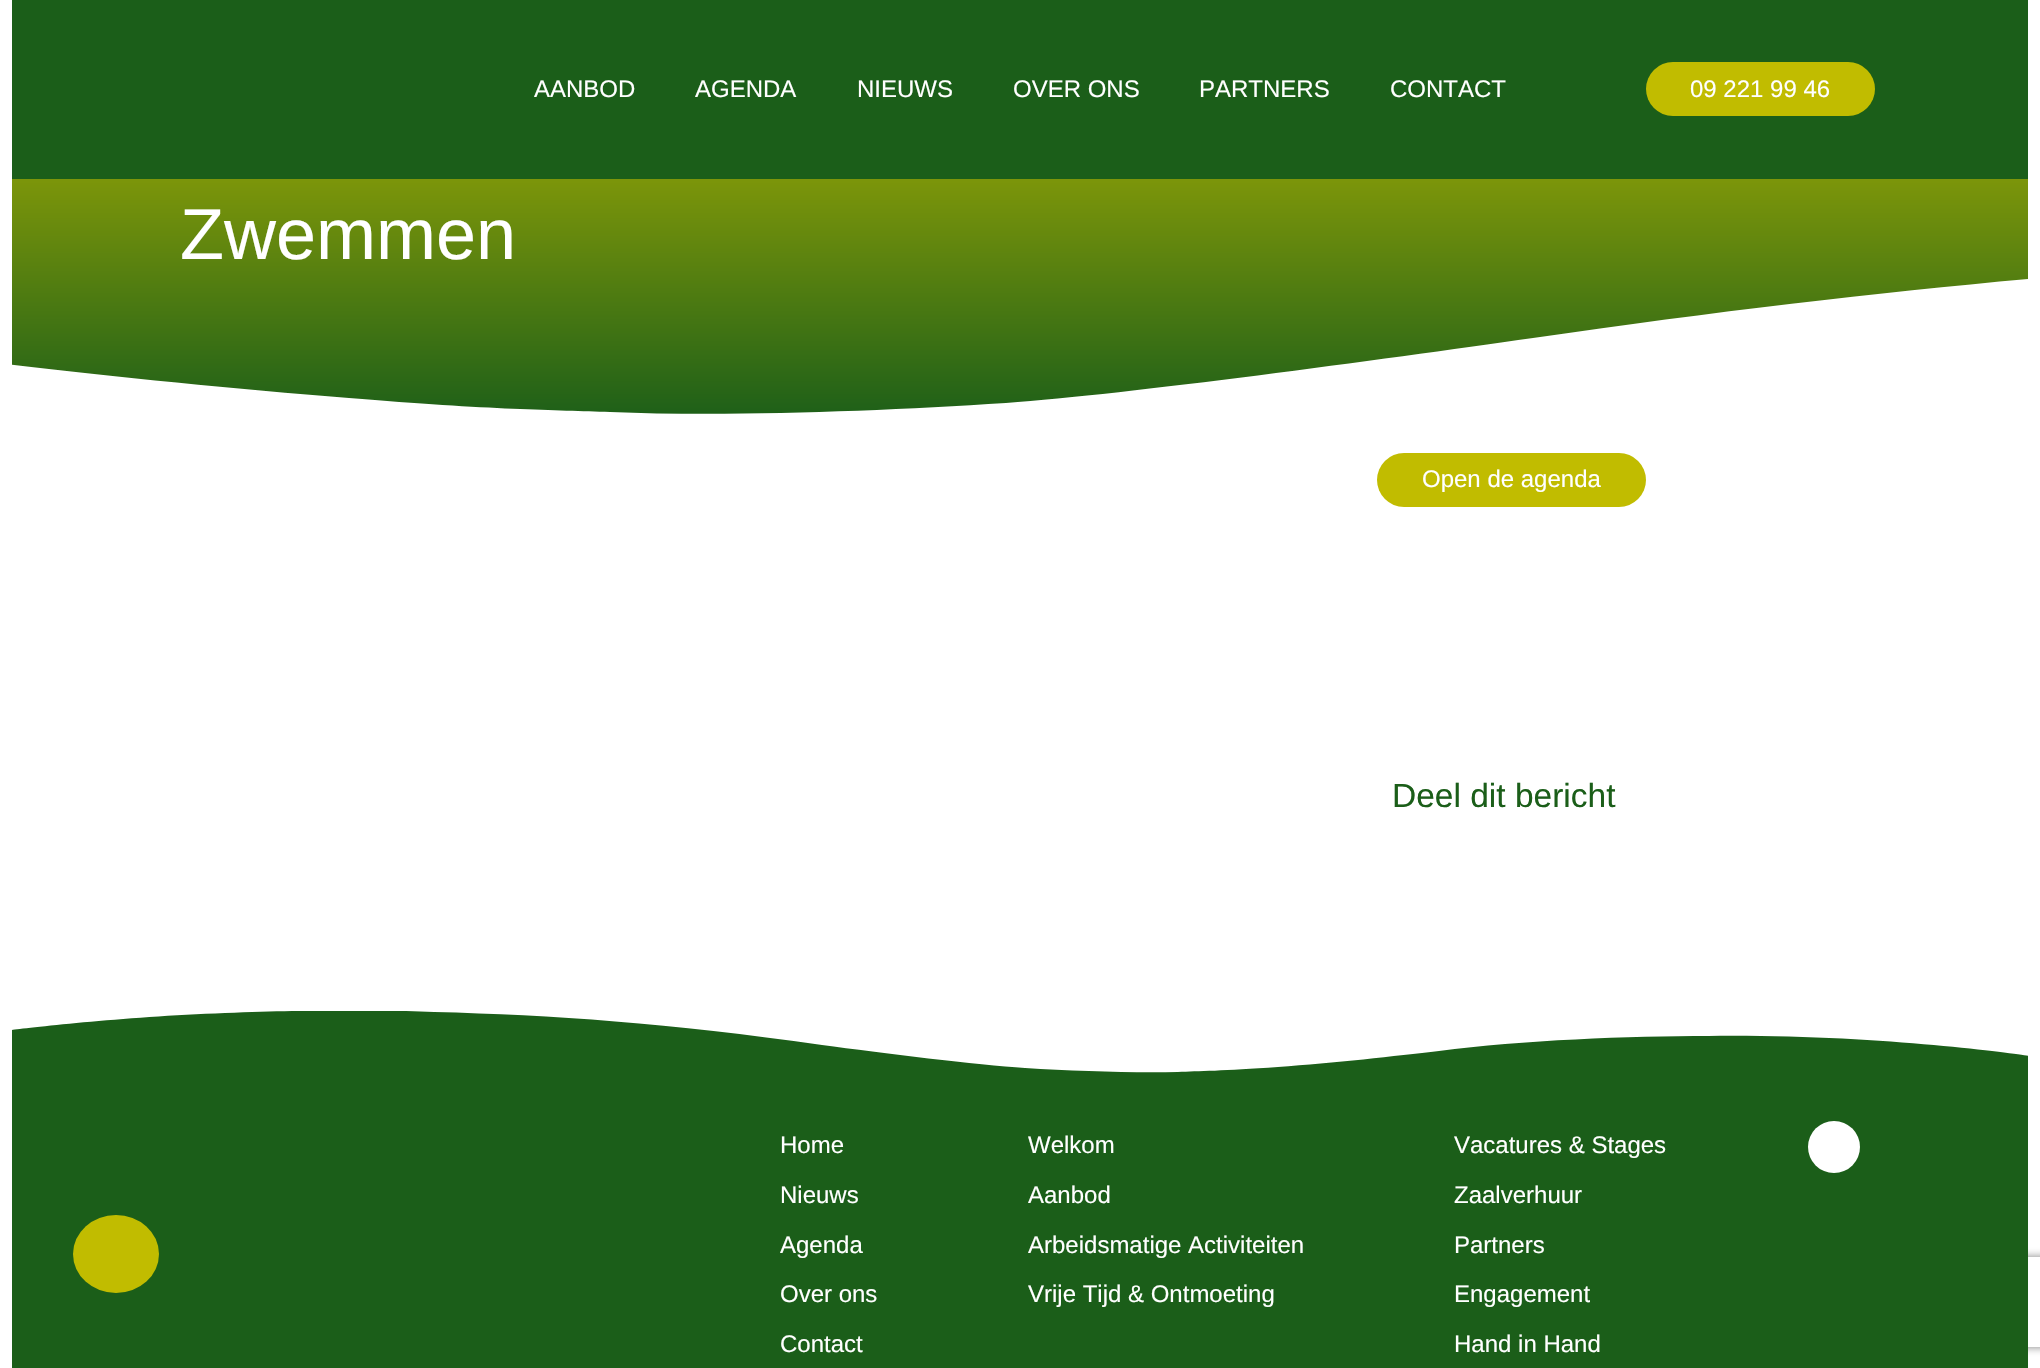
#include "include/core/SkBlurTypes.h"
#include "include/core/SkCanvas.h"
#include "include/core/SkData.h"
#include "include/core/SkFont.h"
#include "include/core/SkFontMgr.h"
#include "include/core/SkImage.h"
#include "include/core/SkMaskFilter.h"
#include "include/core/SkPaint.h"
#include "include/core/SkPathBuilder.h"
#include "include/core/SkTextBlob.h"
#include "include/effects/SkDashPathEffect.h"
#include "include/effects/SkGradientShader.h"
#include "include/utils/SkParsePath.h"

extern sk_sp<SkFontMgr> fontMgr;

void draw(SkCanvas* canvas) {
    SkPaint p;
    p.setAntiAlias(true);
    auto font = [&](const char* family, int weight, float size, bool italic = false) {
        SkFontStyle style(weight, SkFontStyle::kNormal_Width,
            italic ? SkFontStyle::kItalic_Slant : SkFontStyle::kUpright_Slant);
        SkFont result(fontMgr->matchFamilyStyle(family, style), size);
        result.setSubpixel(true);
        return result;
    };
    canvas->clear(0xFFFFFFFF);
    p.setColor(0xFF1B5E19);
    canvas->drawRect(SkRect::MakeLTRB(12, 0, 2028, 179), p);
    auto font1 = font("Liberation Sans", 400, 24);
    p.setColor(0xFFFFFFFF);
    {
        const struct { const char* s; float x, y; } items[] = {
            {"AANBOD", 534, 97},
            {"AGENDA", 695, 97},
            {"NIEUWS", 857, 97},
            {"OVER ONS", 1013, 97},
            {"PARTNERS", 1199, 97},
            {"CONTACT", 1390, 97},
        };
        for (auto [s, x, y] : items) {
            canvas->drawString(s, x, y, font1, p);
        }
    }
    p.setColor(0xFFC1BC00);
    canvas->drawRoundRect(SkRect::MakeLTRB(1646, 62, 1875, 116), 27, 27, p);
    p.setColor(0xFFFFFFFF);
    canvas->drawString("09 221 99 46", 1690, 97, font1, p);
    {
        const SkColor colors[] = {0xFFB0B302, 0xFF1B5E19};
        const float stops[] = {0, 1};
        const SkPoint ends[] = {{1020, 48}, {1020, 423}};
        p.setShader(SkGradientShader::MakeLinear(ends, colors, stops, 2, SkTileMode::kClamp));
        p.setAlpha(255);
    }
    canvas->drawRect(SkRect::MakeLTRB(12, 179, 2028, 414), p);
    auto font2 = font("Liberation Sans", 400, 72);
    p.setShader(nullptr);
    p.setColor(0xFFFFFFFF);
    canvas->drawString("Zwemmen", 180, 259, font2, p);
    canvas->save();
    canvas->clipRect(SkRect::MakeLTRB(12, 245, 2028, 425));
    canvas->drawPath(SkPathBuilder().moveTo(610, 412).cubicTo(729, 417, 881, 411, 1006, 403).cubicTo(1130, 394, 1378, 360, 1533, 338).cubicTo(1931, 280, 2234, 258, 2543, 249).cubicTo(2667, 245, 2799, 242, 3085, 253).cubicTo(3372, 264, 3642, 299, 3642, 299).lineTo(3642, 424).lineTo(-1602, 424).lineTo(-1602, 369).cubicTo(-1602, 369, -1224, 311, -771, 314).cubicTo(-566, 316, -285, 326, -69, 355).cubicTo(43, 369, 205, 387, 349, 398).cubicTo(492, 410, 556, 410, 610, 412).close().detach(), p);
    canvas->restore();
    p.setColor(0xFFC1BC00);
    canvas->drawRoundRect(SkRect::MakeLTRB(1377, 453, 1646, 507), 27, 27, p);
    p.setColor(0xFFFFFFFF);
    canvas->drawString("Open de agenda", 1422, 487, font1, p);
    auto font3 = font("Liberation Sans", 400, 33.5f);
    p.setColor(0xFF1B5E19);
    canvas->drawString("Deel dit bericht", 1392, 807, font3, p);
    canvas->save();
    canvas->clipRect(SkRect::MakeLTRB(12, 1011, 2028, 1077));
    canvas->drawPath(SkPathBuilder().moveTo(1178, 1072).cubicTo(1132, 1073, 1074, 1071, 1025, 1068).cubicTo(978, 1065, 882, 1053, 822, 1045).cubicTo(669, 1023, 553, 1015, 434, 1012).cubicTo(386, 1010, 336, 1009, 225, 1013).cubicTo(115, 1017, 11, 1030, 11, 1030).lineTo(11, 1076).lineTo(2029, 1076).lineTo(2029, 1056).cubicTo(2029, 1056, 1884, 1034, 1709, 1036).cubicTo(1630, 1036, 1522, 1040, 1439, 1051).cubicTo(1396, 1056, 1334, 1063, 1278, 1067).cubicTo(1223, 1071, 1198, 1071, 1178, 1072).close().detach(), p);
    canvas->restore();
    canvas->save();
    canvas->clipPath(SkPathBuilder(SkPathFillType::kEvenOdd).moveTo(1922, 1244).lineTo(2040, 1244).lineTo(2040, 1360).lineTo(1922, 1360).close().moveTo(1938, 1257).lineTo(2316, 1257).cubicTo(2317.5f, 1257, 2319, 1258.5f, 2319, 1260).lineTo(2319, 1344).cubicTo(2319, 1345.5f, 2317.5f, 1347, 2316, 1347).lineTo(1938, 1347).cubicTo(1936.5f, 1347, 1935, 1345.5f, 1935, 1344).lineTo(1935, 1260).cubicTo(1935, 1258.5f, 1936.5f, 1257, 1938, 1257).close().detach(), true);
    p.setColor(0xFF808080);
    p.setMaskFilter(SkMaskFilter::MakeBlur(kNormal_SkBlurStyle, 4));
    canvas->drawRoundRect(SkRect::MakeLTRB(1935, 1257, 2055, 1347), 3, 3, p);
    p.setMaskFilter(nullptr);
    canvas->restore();
    p.setColor(0xFF1B5E19);
    canvas->drawRect(SkRect::MakeLTRB(12, 1076, 2028, 1368), p);
    p.setColor(0xFFC1BC00);
    canvas->drawOval(SkRect::MakeLTRB(73, 1215, 159, 1293), p);
    p.setColor(0xFFFFFFFF);
    {
        const struct { const char* s; float x, y; } items[] = {
            {"Home", 780, 1153},
            {"Nieuws", 780, 1203},
            {"Agenda", 780, 1253},
            {"Over ons", 780, 1302},
            {"Contact", 780, 1352},
            {"Welkom", 1028, 1153},
            {"Aanbod", 1028, 1203},
            {"Arbeidsmatige Activiteiten", 1028, 1253},
            {"Vrije Tijd & Ontmoeting", 1028, 1302},
            {"Vacatures & Stages", 1454, 1153},
            {"Zaalverhuur", 1454, 1203},
            {"Partners", 1454, 1253},
            {"Engagement", 1454, 1302},
            {"Hand in Hand", 1454, 1352},
        };
        for (auto [s, x, y] : items) {
            canvas->drawString(s, x, y, font1, p);
        }
    }
    canvas->drawCircle(1834, 1147, 26, p);
}
